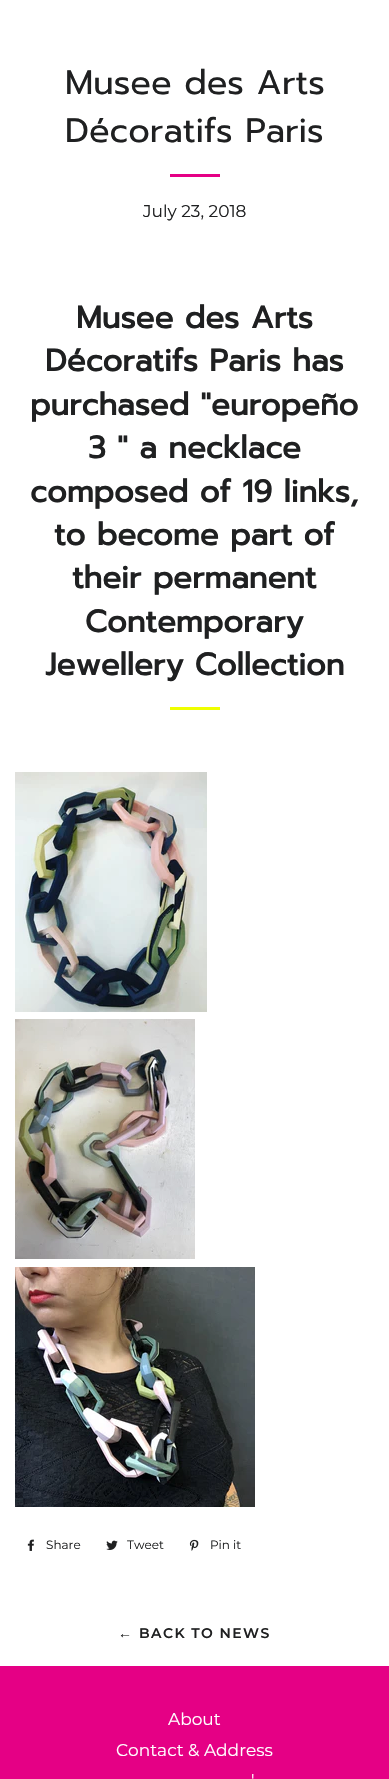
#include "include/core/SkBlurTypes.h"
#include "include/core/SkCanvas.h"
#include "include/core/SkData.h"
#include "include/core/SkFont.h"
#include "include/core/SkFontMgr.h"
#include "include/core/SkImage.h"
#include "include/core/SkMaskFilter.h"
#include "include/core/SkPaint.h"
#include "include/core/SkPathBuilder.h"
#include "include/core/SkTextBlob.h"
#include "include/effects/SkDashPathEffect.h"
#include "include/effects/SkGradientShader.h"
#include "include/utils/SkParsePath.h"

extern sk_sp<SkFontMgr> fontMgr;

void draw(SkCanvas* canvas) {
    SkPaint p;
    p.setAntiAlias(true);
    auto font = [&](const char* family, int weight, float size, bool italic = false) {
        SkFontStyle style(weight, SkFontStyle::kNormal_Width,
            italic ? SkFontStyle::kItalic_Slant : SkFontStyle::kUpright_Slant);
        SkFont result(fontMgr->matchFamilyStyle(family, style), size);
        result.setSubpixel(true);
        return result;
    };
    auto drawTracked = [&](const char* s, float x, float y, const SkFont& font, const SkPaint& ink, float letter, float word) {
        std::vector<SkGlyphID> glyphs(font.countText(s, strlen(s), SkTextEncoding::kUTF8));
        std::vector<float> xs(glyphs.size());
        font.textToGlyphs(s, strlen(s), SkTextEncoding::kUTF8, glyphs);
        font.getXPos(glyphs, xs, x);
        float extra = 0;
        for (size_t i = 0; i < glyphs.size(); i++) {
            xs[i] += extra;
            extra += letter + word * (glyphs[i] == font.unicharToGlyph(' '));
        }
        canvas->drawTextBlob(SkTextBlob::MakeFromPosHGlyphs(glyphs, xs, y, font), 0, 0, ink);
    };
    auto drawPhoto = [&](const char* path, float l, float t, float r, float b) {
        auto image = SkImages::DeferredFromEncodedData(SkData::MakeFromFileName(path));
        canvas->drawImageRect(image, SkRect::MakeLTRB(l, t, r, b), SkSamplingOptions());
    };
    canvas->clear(0xFFFFFFFF);
    auto font1 = font("Prompt", 400, 34);
    p.setColor(0xFF1F2021);
    canvas->drawString("Musee des Arts", 65, 94, font1, p);
    canvas->drawString("Décoratifs Paris", 65, 142, font1, p);
    p.setColor(0xFFE50085);
    canvas->drawRect(SkRect::MakeLTRB(170, 174, 220, 177), p);
    auto font2 = font("Montserrat", 400, 17);
    p.setColor(0xFF1F2021);
    canvas->drawString("July 23, 2018", 143, 217, font2, p);
    auto font3 = font("Prompt", 700, 31);
    {
        const struct { const char* s; float x, y; } items[] = {
            {"Musee des Arts", 76, 328},
            {"Décoratifs Paris has", 45, 371},
            {"purchased \"europeño", 30, 415},
            {"3 \" a necklace", 88, 458},
            {"composed of 19 links,", 30, 502},
            {"to become part of", 54, 545},
            {"their permanent", 72, 588},
            {"Contemporary", 85, 632},
            {"Jewellery Collection", 45, 675},
        };
        for (auto [s, x, y] : items) {
            canvas->drawString(s, x, y, font3, p);
        }
    }
    p.setColor(0xFFEFFF00);
    canvas->drawRect(SkRect::MakeLTRB(170, 707, 220, 710), p);
    drawPhoto("media/1.png", 15, 772, 207, 1012);
    drawPhoto("media/2.png", 15, 1019, 195, 1259);
    drawPhoto("media/3.png", 15, 1267, 255, 1507);
    drawPhoto("media/4.png", 27, 1539, 34, 1551);
    auto font4 = font("Montserrat", 400, 12);
    p.setColor(0xFF1F2021);
    canvas->drawString("Share", 46, 1549, font4, p);
    drawPhoto("media/5.png", 106, 1540, 118, 1550);
    canvas->drawString("Tweet", 127, 1549, font4, p);
    drawPhoto("media/6.png", 189, 1539, 199, 1551);
    canvas->drawString("Pin it", 210, 1549, font4, p);
    auto font5 = font("Liberation Sans", 700, 14);
    drawTracked("←", 118, 1638, font5, p, 1.4f, 0);
    auto font6 = font("Montserrat", 600, 14);
    drawTracked("BACK TO NEWS", 139, 1638, font6, p, 1.4f, 0);
    p.setColor(0xFFE50085);
    canvas->drawRect(SkRect::MakeLTRB(0, 1666, 389, 1779), p);
    p.setColor(0xFFFFFFFF);
    {
        const struct { const char* s; float x, y; } items[] = {
            {"About", 168, 1725},
            {"Contact & Address", 116, 1756},
            {"'", 251, 1786},
        };
        for (auto [s, x, y] : items) {
            canvas->drawString(s, x, y, font2, p);
        }
    }
}
